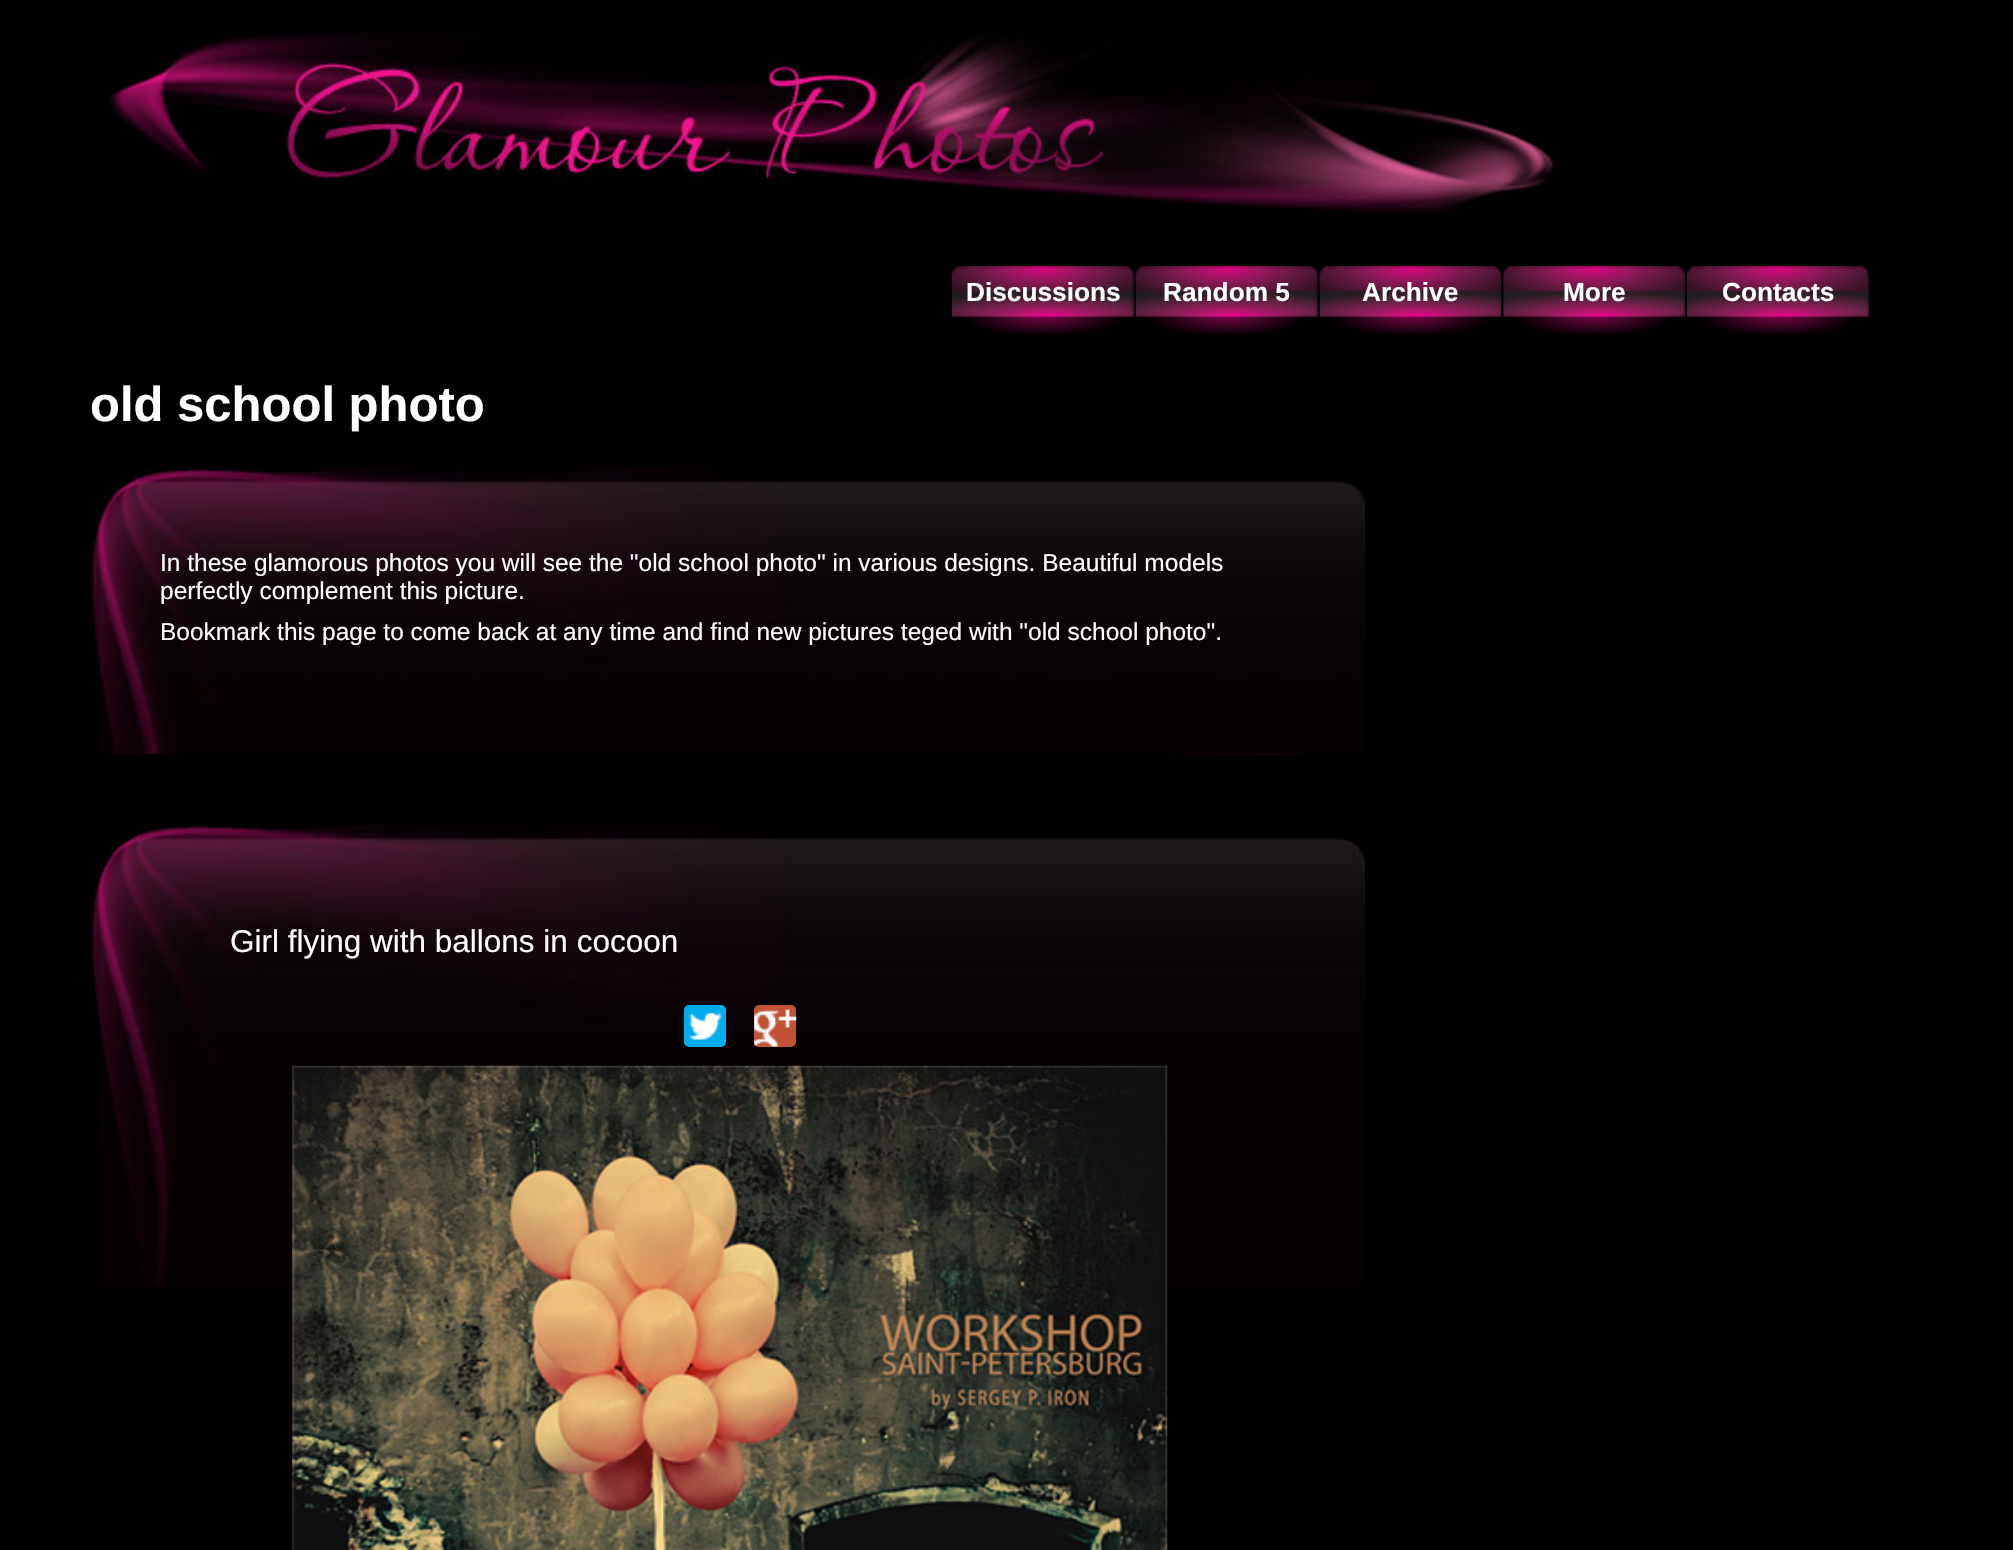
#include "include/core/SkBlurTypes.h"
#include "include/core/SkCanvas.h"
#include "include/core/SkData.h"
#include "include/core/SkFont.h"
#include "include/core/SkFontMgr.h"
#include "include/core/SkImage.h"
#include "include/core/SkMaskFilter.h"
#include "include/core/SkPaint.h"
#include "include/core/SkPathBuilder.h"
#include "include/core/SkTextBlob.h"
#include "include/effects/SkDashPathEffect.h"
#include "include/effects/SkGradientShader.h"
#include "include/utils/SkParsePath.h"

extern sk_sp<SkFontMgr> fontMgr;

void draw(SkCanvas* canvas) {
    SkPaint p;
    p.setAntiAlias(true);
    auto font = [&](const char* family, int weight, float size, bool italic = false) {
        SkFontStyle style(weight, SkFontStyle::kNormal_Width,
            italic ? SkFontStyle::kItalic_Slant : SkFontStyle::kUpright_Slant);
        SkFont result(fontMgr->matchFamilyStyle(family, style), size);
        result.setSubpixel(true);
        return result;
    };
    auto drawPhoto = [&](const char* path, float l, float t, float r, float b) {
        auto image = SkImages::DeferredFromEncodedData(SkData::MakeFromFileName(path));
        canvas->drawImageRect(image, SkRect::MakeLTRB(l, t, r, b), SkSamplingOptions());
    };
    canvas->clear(0xFF000000);
    drawPhoto("media/1.png", 108, 31, 1555, 214);
    drawPhoto("media/5.png", 1503, 266, 1686, 335);
    drawPhoto("media/4.png", 1319, 266, 1504, 335);
    drawPhoto("media/3.png", 1135, 266, 1320, 335);
    drawPhoto("media/2.png", 952, 266, 1136, 335);
    auto font1 = font("Liberation Sans", 700, 26.25f);
    p.setColor(0xFFFFFFFF);
    {
        const struct { const char* s; float x, y; } items[] = {
            {"Discussions", 966, 301},
            {"Random 5", 1163, 301},
            {"Archive", 1362, 301},
            {"More", 1563, 301},
        };
        for (auto [s, x, y] : items) {
            canvas->drawString(s, x, y, font1, p);
        }
    }
    drawPhoto("media/6.png", 1687, 266, 1870, 335);
    canvas->drawString("Contacts", 1722, 301, font1, p);
    auto font2 = font("Liberation Sans", 700, 49);
    canvas->drawString("old school photo", 90, 421, font2, p);
    drawPhoto("media/7.png", 91, 467, 1365, 755);
    drawPhoto("media/8.png", 91, 467, 1365, 755);
    auto font3 = font("Liberation Sans", 400, 24.5f);
    {
        const struct { const char* s; float x, y; } items[] = {
            {"In these glamorous photos you will see the \"old school photo\" in various designs. Beautiful models", 160, 571},
            {"perfectly complement this picture.", 160, 599},
            {"Bookmark this page to come back at any time and find new pictures teged with \"old school photo\".", 160, 640},
        };
        for (auto [s, x, y] : items) {
            canvas->drawString(s, x, y, font3, p);
        }
    }
    p.setColor(0xFF050000);
    canvas->drawRect(SkRect::MakeLTRB(91, 824, 1365, 1550), p);
    drawPhoto("media/9.png", 91, 824, 1365, 1286);
    auto font4 = font("Liberation Sans", 400, 31.5f);
    p.setColor(0xFFFFFFFF);
    canvas->drawString("Girl flying with ballons in cocoon", 230, 952, font4, p);
    p.setColor(0xFF00ACED);
    canvas->drawRoundRect(SkRect::MakeLTRB(684, 1005, 726, 1047), 5, 5, p);
    drawPhoto("media/10.png", 689, 1012, 722, 1040);
    p.setColor(0xFFC25234);
    canvas->drawRoundRect(SkRect::MakeLTRB(754, 1005, 796, 1047), 5, 5, p);
    drawPhoto("media/11.png", 754, 1009, 797, 1047);
    drawPhoto("media/12.png", 292, 1065, 1168, 1550);
}
